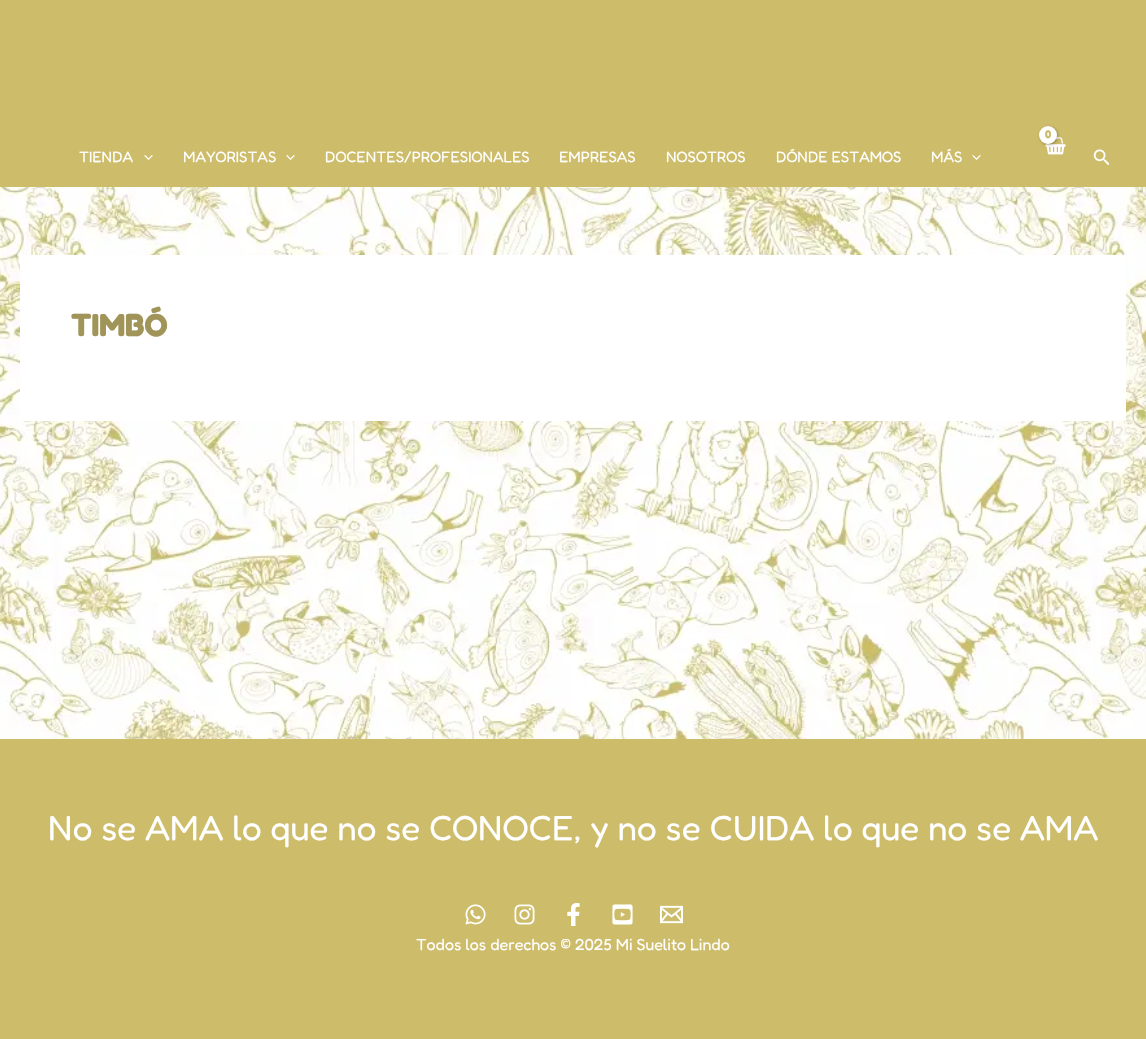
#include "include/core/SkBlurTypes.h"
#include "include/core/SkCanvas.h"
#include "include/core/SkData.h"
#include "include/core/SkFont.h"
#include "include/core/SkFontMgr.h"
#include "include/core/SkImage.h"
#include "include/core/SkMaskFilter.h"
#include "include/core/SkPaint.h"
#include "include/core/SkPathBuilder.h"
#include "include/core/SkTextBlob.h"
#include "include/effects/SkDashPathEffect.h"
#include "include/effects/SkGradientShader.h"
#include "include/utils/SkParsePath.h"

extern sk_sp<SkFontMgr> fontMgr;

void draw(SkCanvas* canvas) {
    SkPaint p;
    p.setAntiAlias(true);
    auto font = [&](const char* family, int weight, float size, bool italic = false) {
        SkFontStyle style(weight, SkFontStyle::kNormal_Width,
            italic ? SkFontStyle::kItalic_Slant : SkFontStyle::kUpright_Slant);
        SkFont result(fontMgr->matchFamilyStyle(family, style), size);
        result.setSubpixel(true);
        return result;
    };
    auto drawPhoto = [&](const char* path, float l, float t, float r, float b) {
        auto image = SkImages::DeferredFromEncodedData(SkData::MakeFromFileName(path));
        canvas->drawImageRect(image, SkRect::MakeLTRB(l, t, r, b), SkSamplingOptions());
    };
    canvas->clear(0xFFFFFFFF);
    drawPhoto("media/1.png", 0, 187, 1146, 739);
    p.setColor(0xFFCDBC69);
    canvas->drawRect(SkRect::MakeLTRB(0, 0, 1146, 187), p);
    drawPhoto("media/2.png", 1045, 136, 1066, 155);
    p.setColor(0x4D000000);
    p.setMaskFilter(SkMaskFilter::MakeBlur(kNormal_SkBlurStyle, 1.5f));
    canvas->drawRoundRect(SkRect::MakeLTRB(1040, 127, 1058, 145), 9, 9, p);
    p.setMaskFilter(nullptr);
    p.setColor(0xFFFFFFFF);
    canvas->drawCircle(1048, 135, 9, p);
    auto font1 = font("Fredoka", 700, 11);
    p.setColor(0xFFCDBC69);
    canvas->drawString("0", 1045, 138, font1, p);
    drawPhoto("media/3.png", 1093, 149, 1109, 166);
    auto font2 = font("Fredoka", 400, 15);
    p.setColor(0xFFFFFFFF);
    canvas->drawString("TIENDA", 79, 162, font2, p);
    drawPhoto("media/4.png", 144, 155, 153, 160);
    canvas->drawString("MAYORISTAS", 183, 162, font2, p);
    drawPhoto("media/4.png", 286, 155, 295, 160);
    {
        const struct { const char* s; float x, y; } items[] = {
            {"DOCENTES/PROFESIONALES", 325, 162},
            {"EMPRESAS", 559, 162},
            {"NOSOTROS", 666, 162},
            {"DÓNDE ESTAMOS", 776, 162},
            {"MÁS", 931, 162},
        };
        for (auto [s, x, y] : items) {
            canvas->drawString(s, x, y, font2, p);
        }
    }
    drawPhoto("media/4.png", 972, 155, 981, 160);
    canvas->drawRect(SkRect::MakeLTRB(20, 255, 1126, 421), p);
    auto font3 = font("Fredoka", 700, 32);
    p.setColor(0xFFA19458);
    canvas->drawString("TIMBÓ", 71, 336, font3, p);
    p.setColor(0xFFCDBC69);
    canvas->drawRect(SkRect::MakeLTRB(0, 739, 1146, 1039), p);
    auto font4 = font("Fredoka", 400, 35);
    p.setColor(0xFFFFFFFF);
    canvas->drawString("No se AMA lo que no se CONOCE, y no se CUIDA lo que no se AMA", 48, 840, font4, p);
    drawPhoto("media/5.png", 465, 904, 486, 925);
    drawPhoto("media/6.png", 514, 904, 535, 925);
    drawPhoto("media/7.png", 567, 903, 580, 926);
    drawPhoto("media/8.png", 612, 904, 633, 925);
    drawPhoto("media/9.png", 660, 905, 683, 924);
    auto font5 = font("Fredoka", 400, 16);
    canvas->drawString("Todos los derechos © 2025 Mi Suelito Lindo", 416, 950, font5, p);
}
